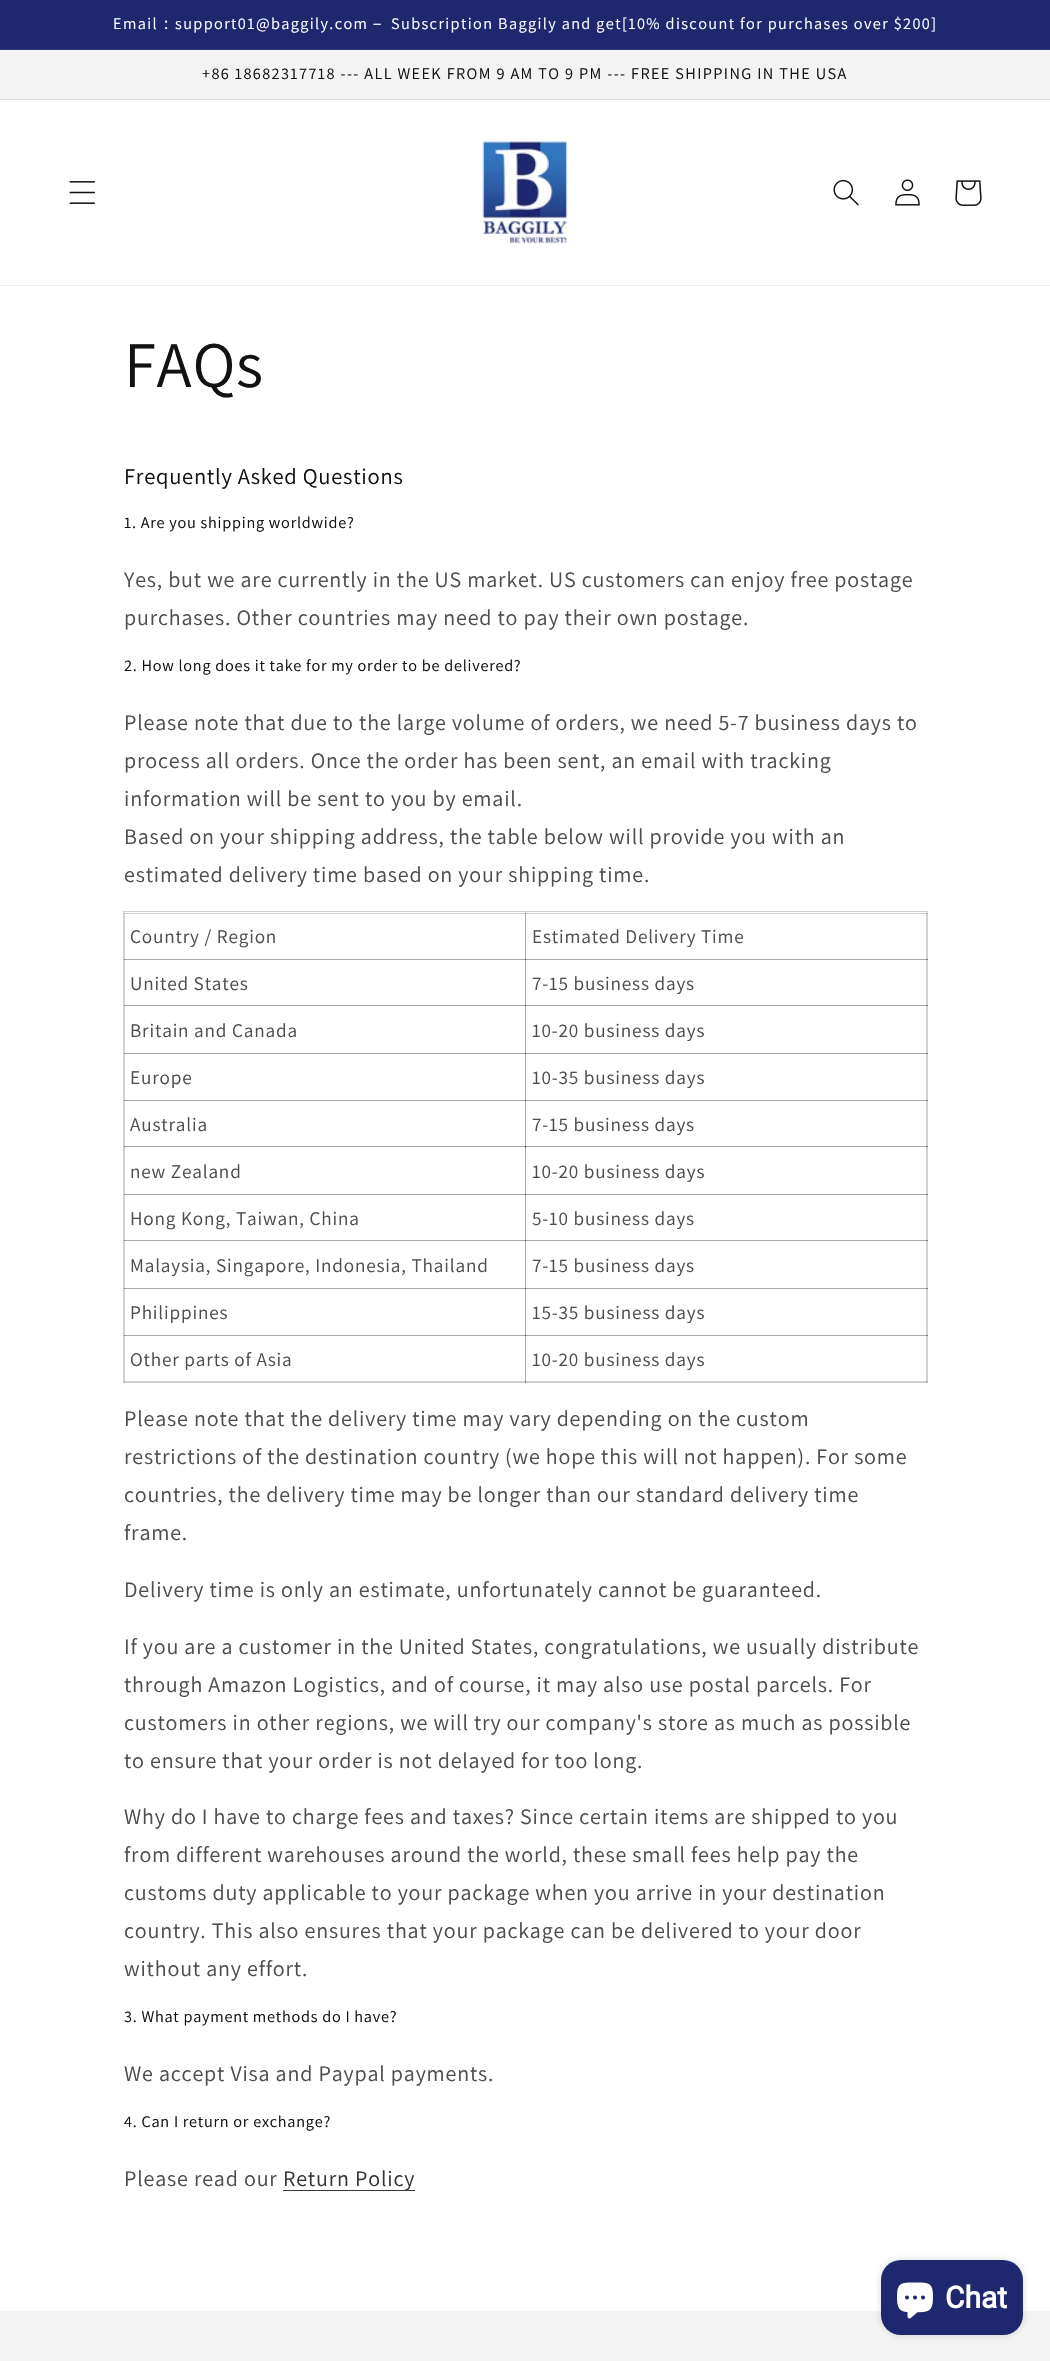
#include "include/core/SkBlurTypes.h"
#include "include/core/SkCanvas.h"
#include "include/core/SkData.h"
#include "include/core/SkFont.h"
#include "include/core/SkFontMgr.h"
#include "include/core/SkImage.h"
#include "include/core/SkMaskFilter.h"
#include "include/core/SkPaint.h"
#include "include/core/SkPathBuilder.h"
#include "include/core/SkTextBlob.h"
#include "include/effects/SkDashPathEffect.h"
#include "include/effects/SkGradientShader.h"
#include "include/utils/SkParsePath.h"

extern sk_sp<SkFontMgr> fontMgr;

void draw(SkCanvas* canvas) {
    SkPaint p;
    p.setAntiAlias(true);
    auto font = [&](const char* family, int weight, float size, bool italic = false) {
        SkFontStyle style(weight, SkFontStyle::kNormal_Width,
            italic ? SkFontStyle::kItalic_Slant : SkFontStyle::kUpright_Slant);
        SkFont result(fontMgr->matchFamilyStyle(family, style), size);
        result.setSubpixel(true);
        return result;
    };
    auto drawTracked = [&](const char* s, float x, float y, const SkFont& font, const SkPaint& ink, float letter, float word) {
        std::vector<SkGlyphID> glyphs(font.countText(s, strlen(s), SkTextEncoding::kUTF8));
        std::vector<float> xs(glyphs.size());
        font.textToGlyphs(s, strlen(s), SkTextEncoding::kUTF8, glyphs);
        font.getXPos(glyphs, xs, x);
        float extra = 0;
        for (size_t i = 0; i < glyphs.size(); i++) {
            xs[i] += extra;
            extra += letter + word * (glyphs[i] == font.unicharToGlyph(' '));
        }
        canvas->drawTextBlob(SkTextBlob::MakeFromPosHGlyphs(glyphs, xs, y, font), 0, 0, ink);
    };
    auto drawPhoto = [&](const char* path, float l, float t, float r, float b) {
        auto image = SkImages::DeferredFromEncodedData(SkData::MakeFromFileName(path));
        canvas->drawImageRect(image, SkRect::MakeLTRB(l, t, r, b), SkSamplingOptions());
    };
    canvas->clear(0xFFFFFFFF);
    p.setColor(0xFF1F286F);
    canvas->drawRect(SkRect::MakeLTRB(0, 0, 1050, 49), p);
    p.setColor(0xFF31397B);
    canvas->drawRect(SkRect::MakeLTRB(0, 49, 1050, 50), p);
    auto font1 = font("Assistant", 400, 16.25f);
    p.setColor(0xFFFFFFFF);
    drawTracked("Email", 113, 29, font1, p, 1.38f, 0);
    auto font2 = font("WenQuanYi Zen Hei", 500, 16.25f);
    drawTracked("：", 158, 29, font2, p, 1.38f, 0);
    drawTracked("support01@baggily.com", 175, 29, font1, p, 1.38f, 0);
    drawTracked("－", 369, 29, font2, p, 1.38f, 0);
    drawTracked("Subscription Baggily and get[10% discount for purchases over $200]", 391, 29, font1, p, 1.38f, 0);
    p.setColor(0xFFF3F3F3);
    canvas->drawRect(SkRect::MakeLTRB(0, 50, 1050, 99), p);
    p.setColor(0xFFE1E1E1);
    canvas->drawRect(SkRect::MakeLTRB(0, 99, 1050, 100), p);
    p.setColor(0xFF121212);
    drawTracked("+86 18682317718 --- ALL WEEK FROM 9 AM TO 9 PM --- FREE SHIPPING IN THE USA", 202, 79, font1, p, 1.38f, 0);
    p.setColor(0xFFECECEC);
    canvas->drawRect(SkRect::MakeLTRB(0, 285, 1050, 286), p);
    drawPhoto("media/1.png", 69, 181, 95, 204);
    drawPhoto("media/2.png", 476, 138, 570, 244);
    drawPhoto("media/3.png", 833, 179, 859, 206);
    drawPhoto("media/4.png", 895, 179, 920, 206);
    drawPhoto("media/5.png", 955, 180, 982, 206);
    auto font3 = font("Assistant", 400, 65);
    p.setColor(0xFF121212);
    drawTracked("FAQs", 124, 387, font3, p, 0.75f, 0);
    auto font4 = font("Assistant", 400, 22.5f);
    drawTracked("Frequently Asked Questions", 124, 484, font4, p, 0.75f, 0);
    drawTracked("1. Are you shipping worldwide?", 124, 528, font1, p, 0.75f, 0);
    auto font5 = font("Assistant", 400, 22);
    p.setColor(0xFF4D4D4D);
    drawTracked("Yes, but we are currently in the US market. US customers can enjoy free postage", 124, 587, font5, p, 0.83f, 0);
    drawTracked("purchases. Other countries may need to pay their own postage.", 124, 625, font5, p, 0.83f, 0);
    p.setColor(0xFF121212);
    drawTracked("2. How long does it take for my order to be delivered?", 124, 671, font1, p, 0.75f, 0);
    p.setColor(0xFF4D4D4D);
    {
        const struct { const char* s; float x, y; } items[] = {
            {"Please note that due to the large volume of orders, we need 5-7 business days to", 124, 730},
            {"process all orders. Once the order has been sent, an email with tracking", 124, 768},
            {"information will be sent to you by email.", 124, 806},
            {"Based on your shipping address, the table below will provide you with an", 124, 844},
            {"estimated delivery time based on your shipping time.", 124, 882},
        };
        for (auto [s, x, y] : items) {
            drawTracked(s, x, y, font5, p, 0.83f, 0);
        }
    }
    p.setStyle(SkPaint::kStroke_Style);
    p.setStrokeWidth(1);
    p.setColor(0xFFD0D0D0);
    canvas->drawRect(SkRect::MakeLTRB(123.5f, 911.5f, 927.5f, 1382.5f), p);
    p.setStyle(SkPaint::kFill_Style);
    {
        const struct { float l, t, r, b; SkColor color; } items[] = {
            {525, 913, 928, 914, 0x33121212},
            {525, 959, 928, 960, 0x33121212},
            {525, 1005, 928, 1006, 0x33121212},
            {525, 1053, 928, 1054, 0x33121212},
            {525, 1100, 928, 1101, 0x33121212},
            {525, 1146, 928, 1147, 0x33121212},
            {525, 1194, 928, 1195, 0x33121212},
            {525, 1240, 928, 1241, 0x33121212},
            {525, 1288, 928, 1289, 0x33121212},
            {525, 1335, 928, 1336, 0x33121212},
            {926, 1335, 927, 1383, 0x33121212},
            {926, 1288, 927, 1336, 0x33121212},
            {926, 1240, 927, 1289, 0x33121212},
            {926, 1194, 927, 1241, 0x33121212},
            {926, 1146, 927, 1195, 0x33121212},
            {926, 1100, 927, 1148, 0x33121212},
            {926, 1053, 927, 1101, 0x33121212},
            {926, 1005, 927, 1054, 0x33121212},
            {926, 959, 927, 1006, 0x33121212},
            {926, 913, 927, 960, 0x33121212},
            {525, 1381, 928, 1382, 0x33121212},
            {525, 1335, 526, 1383, 0x33121212},
            {124, 1335, 526, 1336, 0x33121212},
            {525, 1335, 526, 1383, 0x33121212},
            {525, 1335, 928, 1336, 0x33121212},
            {525, 1288, 526, 1336, 0x33121212},
            {124, 1288, 526, 1289, 0x33121212},
            {525, 1288, 526, 1336, 0x33121212},
            {525, 1288, 928, 1289, 0x33121212},
            {525, 1240, 526, 1289, 0x33121212},
            {124, 1240, 526, 1241, 0x33121212},
            {525, 1240, 526, 1289, 0x33121212},
            {525, 1240, 928, 1241, 0x33121212},
            {525, 1194, 526, 1241, 0x33121212},
            {124, 1194, 526, 1195, 0x33121212},
            {525, 1194, 526, 1241, 0x33121212},
            {525, 1194, 928, 1195, 0x33121212},
            {525, 1146, 526, 1195, 0x33121212},
            {124, 1146, 526, 1147, 0x33121212},
            {525, 1146, 526, 1195, 0x33121212},
            {525, 1146, 928, 1147, 0x33121212},
            {525, 1100, 526, 1148, 0x33121212},
            {124, 1100, 526, 1101, 0x33121212},
            {525, 1100, 526, 1148, 0x33121212},
            {525, 1100, 928, 1101, 0x33121212},
            {525, 1053, 526, 1101, 0x33121212},
            {124, 1053, 526, 1054, 0x33121212},
            {525, 1053, 526, 1101, 0x33121212},
            {525, 1053, 928, 1054, 0x33121212},
            {525, 1005, 526, 1054, 0x33121212},
            {124, 1005, 526, 1006, 0x33121212},
            {525, 1005, 526, 1054, 0x33121212},
            {525, 1005, 928, 1006, 0x33121212},
            {525, 959, 526, 1006, 0x33121212},
            {124, 959, 526, 960, 0x33121212},
            {525, 959, 526, 1006, 0x33121212},
            {525, 959, 928, 960, 0x33121212},
            {525, 913, 526, 960, 0x33121212},
            {124, 913, 526, 914, 0x33121212},
            {525, 913, 526, 960, 0x33121212},
            {124, 1381, 526, 1382, 0x33121212},
            {124, 1335, 125, 1383, 0x33121212},
            {124, 1335, 526, 1336, 0x33121212},
            {124, 1288, 125, 1336, 0x33121212},
            {124, 1288, 526, 1289, 0x33121212},
            {124, 1240, 125, 1289, 0x33121212},
            {124, 1240, 526, 1241, 0x33121212},
            {124, 1194, 125, 1241, 0x33121212},
            {124, 1194, 526, 1195, 0x33121212},
            {124, 1146, 125, 1195, 0x33121212},
            {124, 1146, 526, 1147, 0x33121212},
            {124, 1100, 125, 1148, 0x33121212},
            {124, 1100, 526, 1101, 0x33121212},
            {124, 1053, 125, 1101, 0x33121212},
            {124, 1053, 526, 1054, 0x33121212},
            {124, 1005, 125, 1054, 0x33121212},
            {124, 1005, 526, 1006, 0x33121212},
            {124, 959, 125, 1006, 0x33121212},
            {124, 959, 526, 960, 0x33121212},
            {124, 913, 125, 960, 0x33121212},
        };
        for (auto [l, t, r, b, color] : items) {
            p.setColor(color);
            canvas->drawRect(SkRect::MakeLTRB(l, t, r, b), p);
        }
    }
    auto font6 = font("Assistant", 400, 19.25f);
    p.setColor(0xFF4D4D4D);
    {
        const struct { const char* s; float x, y; } items[] = {
            {"Country / Region", 130, 943},
            {"Estimated Delivery Time", 532, 943},
            {"United States", 130, 990},
            {"7-15 business days", 532, 990},
            {"Britain and Canada", 130, 1037},
            {"10-20 business days", 532, 1037},
            {"Europe", 130, 1084},
            {"10-35 business days", 532, 1084},
            {"Australia", 130, 1131},
            {"7-15 business days", 532, 1131},
            {"new Zealand", 130, 1178},
            {"10-20 business days", 532, 1178},
            {"Hong Kong, Taiwan, China", 130, 1225},
            {"5-10 business days", 532, 1225},
            {"Malaysia, Singapore, Indonesia, Thailand", 130, 1272},
            {"7-15 business days", 532, 1272},
            {"Philippines", 130, 1319},
            {"15-35 business days", 532, 1319},
            {"Other parts of Asia", 130, 1366},
            {"10-20 business days", 532, 1366},
        };
        for (auto [s, x, y] : items) {
            drawTracked(s, x, y, font6, p, 0.83f, 0);
        }
    }
    {
        const struct { const char* s; float x, y; } items[] = {
            {"Please note that the delivery time may vary depending on the custom", 124, 1426},
            {"restrictions of the destination country (we hope this will not happen). For some", 124, 1464},
            {"countries, the delivery time may be longer than our standard delivery time", 124, 1502},
            {"frame.", 124, 1540},
            {"Delivery time is only an estimate, unfortunately cannot be guaranteed.", 124, 1597},
            {"If you are a customer in the United States, congratulations, we usually distribute", 124, 1654},
            {"through Amazon Logistics, and of course, it may also use postal parcels. For", 124, 1692},
            {"customers in other regions, we will try our company's store as much as possible", 124, 1730},
            {"to ensure that your order is not delayed for too long.", 124, 1768},
            {"Why do I have to charge fees and taxes? Since certain items are shipped to you", 124, 1824},
            {"from different warehouses around the world, these small fees help pay the", 124, 1862},
            {"customs duty applicable to your package when you arrive in your destination", 124, 1900},
            {"country. This also ensures that your package can be delivered to your door", 124, 1938},
            {"without any effort.", 124, 1976},
        };
        for (auto [s, x, y] : items) {
            drawTracked(s, x, y, font5, p, 0.83f, 0);
        }
    }
    p.setColor(0xFF121212);
    drawTracked("3. What payment methods do I have?", 124, 2022, font1, p, 0.75f, 0);
    p.setColor(0xFF4D4D4D);
    drawTracked("We accept Visa and Paypal payments.", 124, 2081, font5, p, 0.83f, 0);
    p.setColor(0xFF121212);
    drawTracked("4. Can I return or exchange?", 124, 2127, font1, p, 0.75f, 0);
    p.setColor(0xFF4D4D4D);
    drawTracked("Please read our", 124, 2186, font5, p, 0.83f, 0);
    p.setColor(0xFF363636);
    canvas->drawRect(SkRect::MakeLTRB(283, 2190, 415, 2191), p);
    p.setColor(0xFF353535);
    drawTracked("Return Policy", 283, 2186, font5, p, 0.83f, 0);
    p.setColor(0xFFF3F3F3);
    canvas->drawRect(SkRect::MakeLTRB(0, 2311, 1050, 2361), p);
    p.setColor(0x26000000);
    p.setMaskFilter(SkMaskFilter::MakeBlur(kNormal_SkBlurStyle, 3));
    canvas->drawRoundRect(SkRect::MakeLTRB(881, 2260, 1023, 2335), 20, 20, p);
    p.setMaskFilter(nullptr);
    p.setColor(0xFF1F286F);
    canvas->drawRoundRect(SkRect::MakeLTRB(881, 2260, 1023, 2335), 20, 20, p);
    drawPhoto("media/6.png", 897, 2282, 933, 2319);
    auto font7 = font("Roboto", 700, 30);
    p.setColor(0xFFFFFFFF);
    canvas->drawString("Chat", 945, 2308, font7, p);
}
